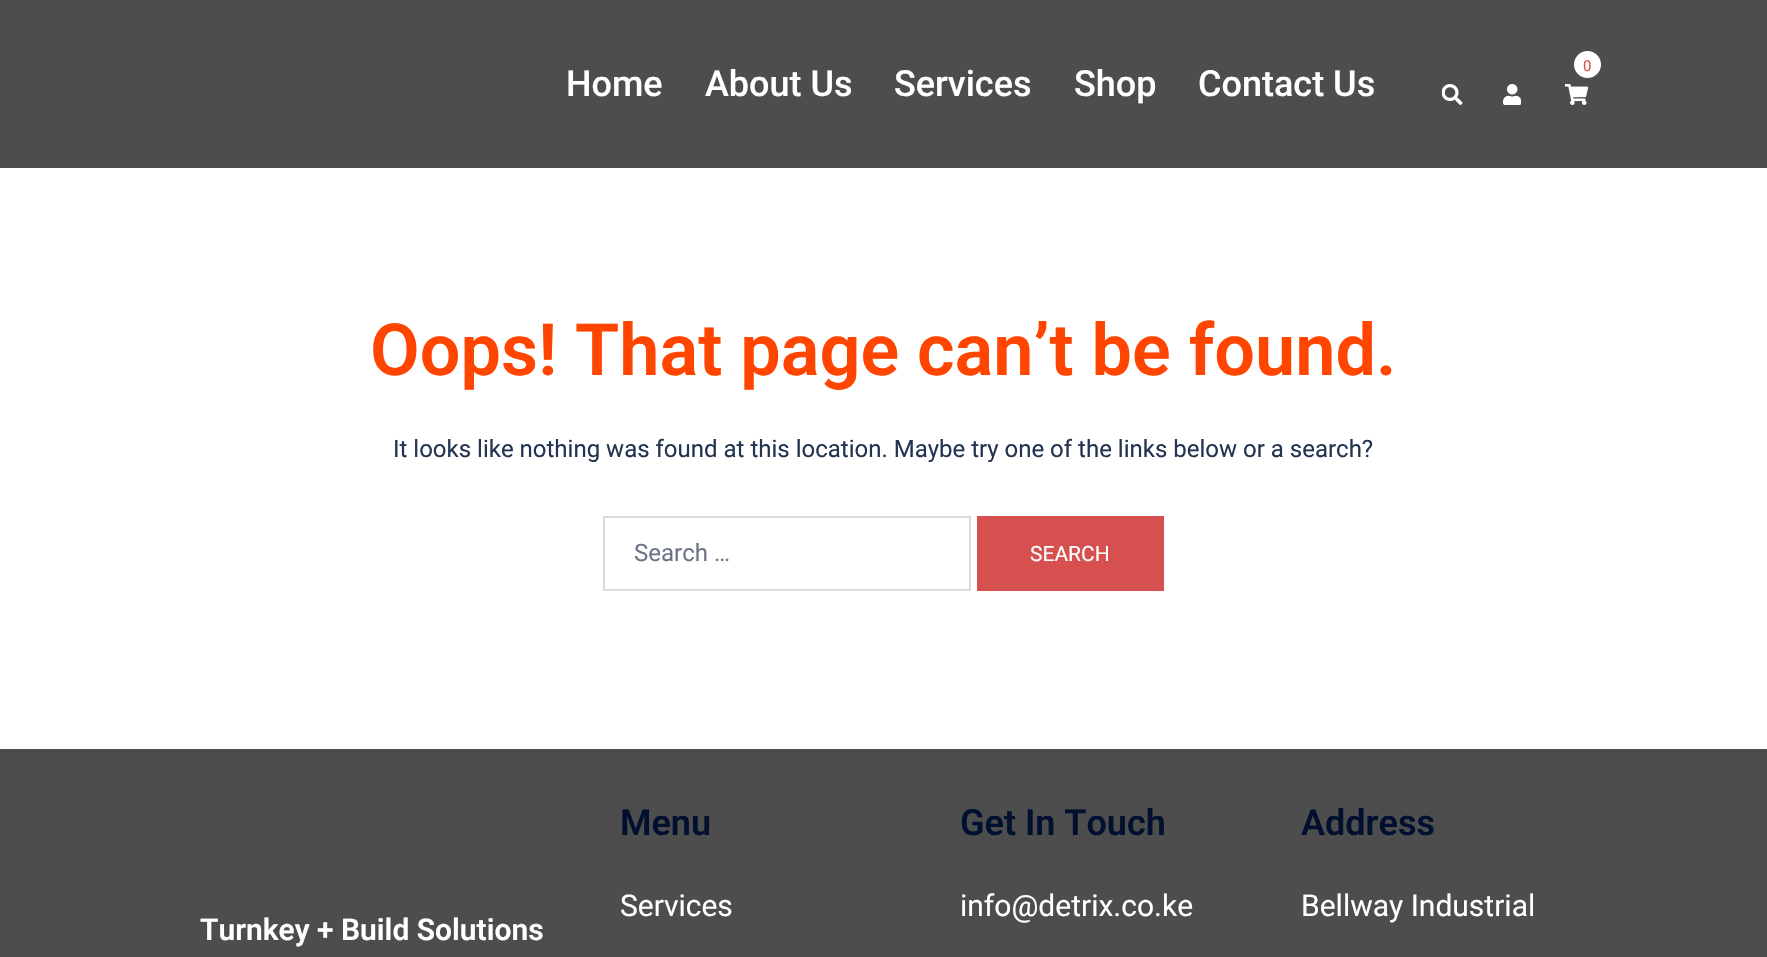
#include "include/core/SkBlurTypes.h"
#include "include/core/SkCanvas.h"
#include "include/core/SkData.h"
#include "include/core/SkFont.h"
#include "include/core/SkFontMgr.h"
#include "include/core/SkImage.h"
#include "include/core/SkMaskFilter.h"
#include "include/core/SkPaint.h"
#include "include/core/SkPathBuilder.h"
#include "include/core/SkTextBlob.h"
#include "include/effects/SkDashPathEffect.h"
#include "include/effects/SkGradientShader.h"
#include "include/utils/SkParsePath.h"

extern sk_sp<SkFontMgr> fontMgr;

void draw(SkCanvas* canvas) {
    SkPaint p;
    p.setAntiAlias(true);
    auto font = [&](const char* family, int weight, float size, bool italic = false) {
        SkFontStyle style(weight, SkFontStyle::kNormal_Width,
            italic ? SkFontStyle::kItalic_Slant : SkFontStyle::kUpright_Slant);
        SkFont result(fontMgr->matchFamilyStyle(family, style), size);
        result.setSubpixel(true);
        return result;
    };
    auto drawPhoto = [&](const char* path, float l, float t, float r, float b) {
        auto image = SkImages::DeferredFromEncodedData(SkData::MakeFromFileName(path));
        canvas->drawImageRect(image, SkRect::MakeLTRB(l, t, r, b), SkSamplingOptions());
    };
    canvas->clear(0xFFFFFFFF);
    p.setColor(0xFF4D4D4D);
    canvas->drawRect(SkRect::MakeLTRB(0, 0, 1767, 168), p);
    p.setColor(0xFFFFFFFF);
    canvas->drawCircle(1587.5f, 64.5f, 12.5f, p);
    p.setStyle(SkPaint::kStroke_Style);
    p.setStrokeWidth(2);
    canvas->drawCircle(1587.5f, 64.5f, 12.5f, p);
    auto font1 = font("Roboto", 400, 15);
    p.setStyle(SkPaint::kFill_Style);
    p.setColor(0xFFD65050);
    canvas->drawString("0", 1583, 71, font1, p);
    drawPhoto("media/1.png", 1565, 84, 1589, 105);
    drawPhoto("media/2.png", 1503, 84, 1521, 105);
    drawPhoto("media/3.png", 1442, 84, 1463, 105);
    auto font2 = font("Roboto", 500, 36);
    p.setColor(0xFFFFFFFF);
    {
        const struct { const char* s; float x, y; } items[] = {
            {"Home", 566, 96},
            {"About Us", 705, 96},
            {"Services", 894, 96},
            {"Shop", 1074, 96},
            {"Contact Us", 1198, 96},
        };
        for (auto [s, x, y] : items) {
            canvas->drawString(s, x, y, font2, p);
        }
    }
    auto font3 = font("Roboto", 600, 72);
    p.setColor(0xFFFF4500);
    canvas->drawString("Oops! That page can’t be found.", 370, 375, font3, p);
    auto font4 = font("Roboto", 400, 24);
    p.setColor(0xFF233452);
    canvas->drawString("It looks like nothing was found at this location. Maybe try one of the links below or a search?", 393, 457, font4, p);
    p.setStyle(SkPaint::kStroke_Style);
    p.setColor(0xFFDBDBDB);
    canvas->drawRect(SkRect::MakeLTRB(604, 517, 970, 590), p);
    p.setStyle(SkPaint::kFill_Style);
    p.setColor(0xFF6D7685);
    canvas->drawString("Search …", 634, 561, font4, p);
    p.setColor(0xFFD65050);
    canvas->drawRect(SkRect::MakeLTRB(977, 516, 1164, 591), p);
    auto font5 = font("Roboto", 400, 21);
    p.setColor(0xFFFFFFFF);
    canvas->drawString("SEARCH", 1030, 561, font5, p);
    p.setColor(0xFF4D4D4D);
    canvas->drawRect(SkRect::MakeLTRB(0, 749, 1767, 957), p);
    auto font6 = font("Roboto", 600, 36);
    p.setColor(0xFF00102E);
    canvas->drawString("Menu", 620, 835, font6, p);
    auto font7 = font("Roboto", 400, 30);
    p.setColor(0xFFFFFFFF);
    canvas->drawString("Services", 620, 916, font7, p);
    p.setColor(0xFF00102E);
    canvas->drawString("Get In Touch", 960, 835, font6, p);
    p.setColor(0xFFFFFFFF);
    canvas->drawString("info@detrix.co.ke", 960, 916, font7, p);
    p.setColor(0xFF00102E);
    canvas->drawString("Address", 1301, 835, font6, p);
    p.setColor(0xFFFFFFFF);
    canvas->drawString("Bellway Industrial", 1301, 916, font7, p);
    auto font8 = font("Roboto", 600, 30);
    canvas->drawString("Turnkey + Build Solutions", 200, 940, font8, p);
}
